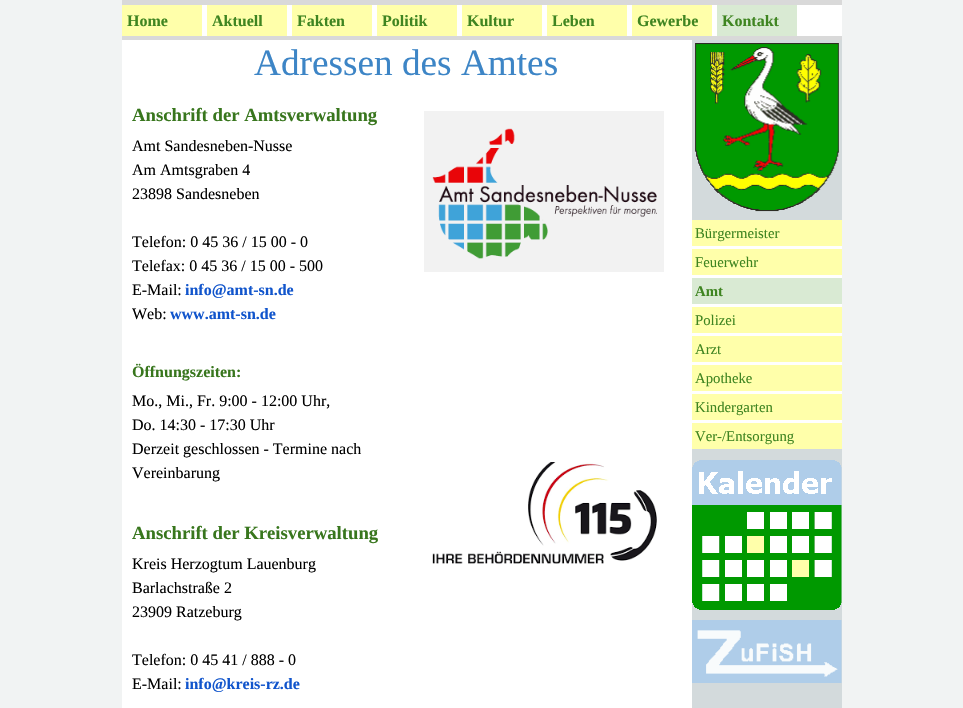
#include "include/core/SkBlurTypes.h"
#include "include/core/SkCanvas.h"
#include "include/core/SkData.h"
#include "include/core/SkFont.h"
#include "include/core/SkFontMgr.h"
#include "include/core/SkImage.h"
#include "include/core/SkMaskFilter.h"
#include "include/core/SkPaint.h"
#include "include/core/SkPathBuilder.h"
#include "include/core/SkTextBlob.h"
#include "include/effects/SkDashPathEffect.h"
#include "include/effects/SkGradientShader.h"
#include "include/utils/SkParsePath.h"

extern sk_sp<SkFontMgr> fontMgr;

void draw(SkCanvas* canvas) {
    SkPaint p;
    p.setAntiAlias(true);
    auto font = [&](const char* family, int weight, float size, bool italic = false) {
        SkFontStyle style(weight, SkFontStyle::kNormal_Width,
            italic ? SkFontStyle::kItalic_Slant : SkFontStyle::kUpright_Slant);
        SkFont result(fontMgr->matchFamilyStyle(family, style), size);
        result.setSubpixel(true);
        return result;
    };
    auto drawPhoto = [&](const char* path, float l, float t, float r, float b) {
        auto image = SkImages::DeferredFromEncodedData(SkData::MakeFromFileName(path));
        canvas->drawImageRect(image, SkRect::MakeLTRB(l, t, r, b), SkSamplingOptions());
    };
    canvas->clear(0xFFF1F3F3);
    {
        const struct { float l, t, r, b; SkColor color; } items[] = {
            {122, 0, 842, 40, 0xFFD9D9D9},
            {202, 5, 842, 36, 0xFFFFFFFF},
            {122, 5, 202, 36, 0xFFFFFFAA},
        };
        for (auto [l, t, r, b, color] : items) {
            p.setColor(color);
            canvas->drawRect(SkRect::MakeLTRB(l, t, r, b), p);
        }
    }
    auto font1 = font("Liberation Serif", 700, 16);
    p.setColor(0xFF3F8521);
    canvas->drawString("Home", 127, 26, font1, p);
    p.setColor(0xFFFFFFAA);
    canvas->drawRect(SkRect::MakeLTRB(207, 5, 287, 36), p);
    p.setColor(0xFF3F8521);
    canvas->drawString("Aktuell", 212, 26, font1, p);
    p.setColor(0xFFFFFFAA);
    canvas->drawRect(SkRect::MakeLTRB(292, 5, 372, 36), p);
    p.setColor(0xFF3F8521);
    canvas->drawString("Fakten", 297, 26, font1, p);
    p.setColor(0xFFFFFFAA);
    canvas->drawRect(SkRect::MakeLTRB(377, 5, 457, 36), p);
    p.setColor(0xFF3F8521);
    canvas->drawString("Politik", 382, 26, font1, p);
    p.setColor(0xFFFFFFAA);
    canvas->drawRect(SkRect::MakeLTRB(462, 5, 542, 36), p);
    p.setColor(0xFF3F8521);
    canvas->drawString("Kultur", 467, 26, font1, p);
    p.setColor(0xFFFFFFAA);
    canvas->drawRect(SkRect::MakeLTRB(547, 5, 627, 36), p);
    p.setColor(0xFF3F8521);
    canvas->drawString("Leben", 552, 26, font1, p);
    p.setColor(0xFFFFFFAA);
    canvas->drawRect(SkRect::MakeLTRB(632, 5, 712, 36), p);
    p.setColor(0xFF3F8521);
    canvas->drawString("Gewerbe", 637, 26, font1, p);
    p.setColor(0xFFD9EAD3);
    canvas->drawRect(SkRect::MakeLTRB(717, 5, 797, 36), p);
    p.setColor(0xFF3F8521);
    canvas->drawString("Kontakt", 722, 26, font1, p);
    p.setColor(0xFFFFFFFF);
    canvas->drawRect(SkRect::MakeLTRB(122, 40, 692, 708), p);
    auto font2 = font("Liberation Serif", 400, 37.25f);
    p.setColor(0xFF3D85C6);
    canvas->drawString("Adressen des Amtes", 254, 75, font2, p);
    auto font3 = font("Liberation Serif", 700, 18.7f);
    p.setColor(0xFF38761D);
    canvas->drawString("Anschrift der Amtsverwaltung", 132, 121, font3, p);
    auto font4 = font("Liberation Serif", 400, 16);
    p.setColor(0xFF000000);
    {
        const struct { const char* s; float x, y; } items[] = {
            {"Amt Sandesneben-Nusse", 132, 151},
            {"Am Amtsgraben 4", 132, 175},
            {"23898 Sandesneben", 132, 199},
            {"Telefon: 0 45 36 / 15 00 - 0", 132, 247},
            {"Telefax: 0 45 36 / 15 00 - 500", 132, 271},
            {"E-Mail:", 132, 295},
        };
        for (auto [s, x, y] : items) {
            canvas->drawString(s, x, y, font4, p);
        }
    }
    p.setColor(0xFF1155CC);
    canvas->drawString("info@amt-sn.de", 185, 295, font1, p);
    p.setColor(0xFF000000);
    canvas->drawString("Web:", 132, 319, font4, p);
    p.setColor(0xFF1155CC);
    canvas->drawString("www.amt-sn.de", 170, 319, font1, p);
    p.setColor(0xFF38761D);
    canvas->drawString("Öffnungszeiten:", 132, 377, font1, p);
    p.setColor(0xFF000000);
    {
        const struct { const char* s; float x, y; } items[] = {
            {"Mo., Mi., Fr. 9:00 - 12:00 Uhr,", 132, 406},
            {"Do. 14:30 - 17:30 Uhr", 132, 430},
            {"Derzeit geschlossen - Termine nach", 132, 454},
            {"Vereinbarung", 132, 478},
        };
        for (auto [s, x, y] : items) {
            canvas->drawString(s, x, y, font4, p);
        }
    }
    p.setColor(0xFF38761D);
    canvas->drawString("Anschrift der Kreisverwaltung", 132, 539, font3, p);
    p.setColor(0xFF000000);
    {
        const struct { const char* s; float x, y; } items[] = {
            {"Kreis Herzogtum Lauenburg", 132, 569},
            {"Barlachstraße 2", 132, 593},
            {"23909 Ratzeburg", 132, 617},
            {"Telefon: 0 45 41 / 888 - 0", 132, 665},
            {"E-Mail:", 132, 689},
        };
        for (auto [s, x, y] : items) {
            canvas->drawString(s, x, y, font4, p);
        }
    }
    p.setColor(0xFF1155CC);
    canvas->drawString("info@kreis-rz.de", 185, 689, font1, p);
    drawPhoto("media/1.png", 424, 111, 664, 272);
    drawPhoto("media/2.png", 432, 462, 657, 564);
    p.setColor(0xFFD3DADC);
    canvas->drawRect(SkRect::MakeLTRB(692, 40, 842, 708), p);
    drawPhoto("media/3.png", 695, 43, 839, 212);
    p.setColor(0xFFFFFFFF);
    canvas->drawRect(SkRect::MakeLTRB(692, 246, 842, 423), p);
    p.setColor(0xFFFFFFAA);
    canvas->drawRect(SkRect::MakeLTRB(692, 220, 842, 246), p);
    auto font5 = font("Liberation Serif", 400, 14.75f);
    p.setColor(0xFF3F8521);
    canvas->drawString("Bürgermeister", 695, 238, font5, p);
    p.setColor(0xFFFFFFAA);
    canvas->drawRect(SkRect::MakeLTRB(692, 249, 842, 275), p);
    p.setColor(0xFF3F8521);
    canvas->drawString("Feuerwehr", 695, 267, font5, p);
    p.setColor(0xFFD9EAD3);
    canvas->drawRect(SkRect::MakeLTRB(692, 278, 842, 304), p);
    auto font6 = font("Liberation Serif", 700, 14.75f);
    p.setColor(0xFF3F8521);
    canvas->drawString("Amt", 695, 296, font6, p);
    p.setColor(0xFFFFFFAA);
    canvas->drawRect(SkRect::MakeLTRB(692, 307, 842, 333), p);
    p.setColor(0xFF3F8521);
    canvas->drawString("Polizei", 695, 325, font5, p);
    p.setColor(0xFFFFFFAA);
    canvas->drawRect(SkRect::MakeLTRB(692, 336, 842, 362), p);
    p.setColor(0xFF3F8521);
    canvas->drawString("Arzt", 695, 354, font5, p);
    p.setColor(0xFFFFFFAA);
    canvas->drawRect(SkRect::MakeLTRB(692, 365, 842, 391), p);
    p.setColor(0xFF3F8521);
    canvas->drawString("Apotheke", 695, 383, font5, p);
    p.setColor(0xFFFFFFAA);
    canvas->drawRect(SkRect::MakeLTRB(692, 394, 842, 420), p);
    p.setColor(0xFF3F8521);
    canvas->drawString("Kindergarten", 695, 412, font5, p);
    p.setColor(0xFFFFFFAA);
    canvas->drawRect(SkRect::MakeLTRB(692, 423, 842, 449), p);
    p.setColor(0xFF3F8521);
    canvas->drawString("Ver-/Entsorgung", 695, 441, font5, p);
    drawPhoto("media/4.png", 692, 460, 842, 610);
    drawPhoto("media/5.png", 692, 620, 842, 683);
}
